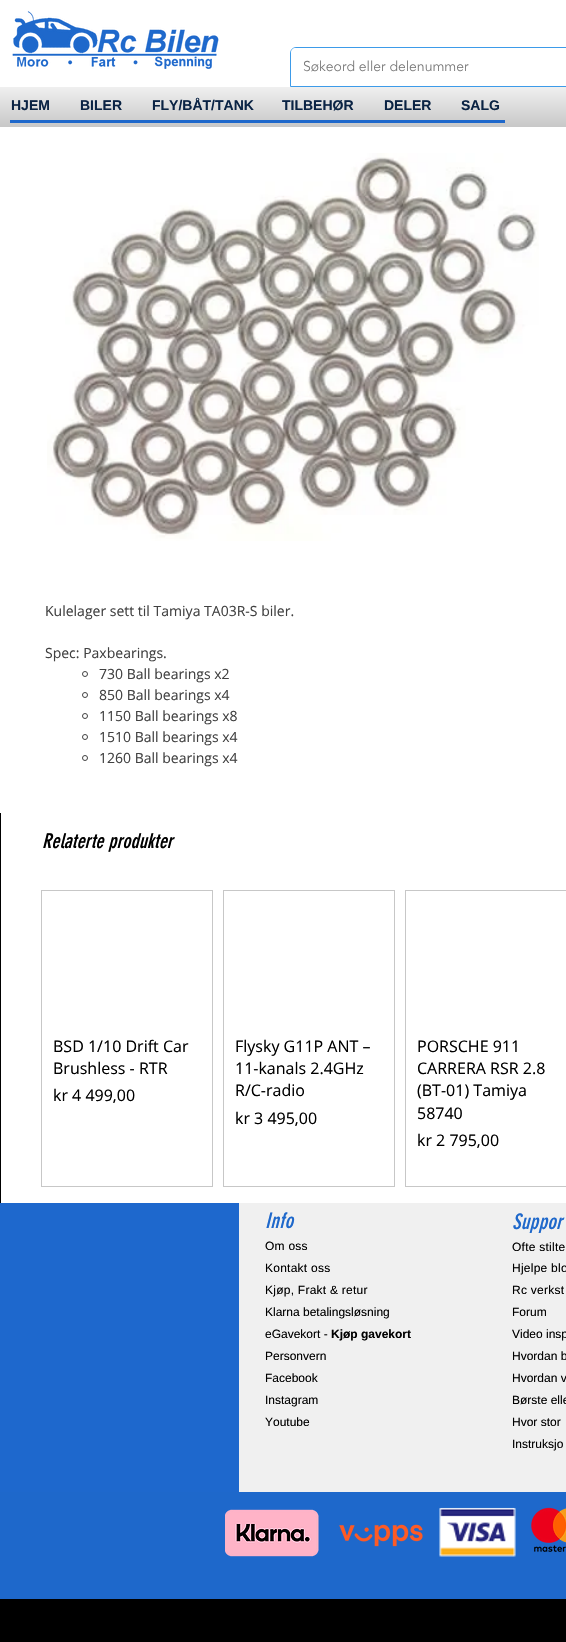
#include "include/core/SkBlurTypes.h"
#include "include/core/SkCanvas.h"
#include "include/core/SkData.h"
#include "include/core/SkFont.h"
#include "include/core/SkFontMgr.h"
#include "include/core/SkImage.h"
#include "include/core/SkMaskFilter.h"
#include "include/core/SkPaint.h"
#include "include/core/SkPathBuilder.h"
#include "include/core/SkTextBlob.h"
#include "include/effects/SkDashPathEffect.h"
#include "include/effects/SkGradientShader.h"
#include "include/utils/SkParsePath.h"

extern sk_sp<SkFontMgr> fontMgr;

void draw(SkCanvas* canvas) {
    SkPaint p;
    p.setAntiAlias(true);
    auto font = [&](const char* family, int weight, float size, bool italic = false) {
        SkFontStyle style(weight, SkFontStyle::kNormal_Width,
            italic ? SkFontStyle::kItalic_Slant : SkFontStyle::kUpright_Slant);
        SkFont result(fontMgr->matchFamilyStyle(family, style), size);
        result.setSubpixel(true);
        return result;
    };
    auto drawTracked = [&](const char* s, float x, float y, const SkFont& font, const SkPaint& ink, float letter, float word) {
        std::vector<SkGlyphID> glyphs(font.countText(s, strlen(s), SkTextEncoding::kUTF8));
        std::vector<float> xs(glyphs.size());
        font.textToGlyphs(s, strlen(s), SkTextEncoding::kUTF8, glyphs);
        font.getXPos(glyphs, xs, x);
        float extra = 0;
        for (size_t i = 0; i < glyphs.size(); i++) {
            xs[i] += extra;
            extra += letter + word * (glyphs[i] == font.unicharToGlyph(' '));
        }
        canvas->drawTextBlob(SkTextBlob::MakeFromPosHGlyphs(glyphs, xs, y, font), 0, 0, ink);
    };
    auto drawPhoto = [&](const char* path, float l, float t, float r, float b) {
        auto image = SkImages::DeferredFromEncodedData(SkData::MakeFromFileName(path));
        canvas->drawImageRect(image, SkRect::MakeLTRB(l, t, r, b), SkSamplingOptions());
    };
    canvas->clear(0xFF000000);
    p.setColor(0xFFFFFFFF);
    canvas->drawRect(SkRect::MakeLTRB(0, 0, 566, 87), p);
    drawPhoto("media/1.png", 12, 11, 219, 69);
    p.setStyle(SkPaint::kStroke_Style);
    p.setStrokeWidth(1);
    p.setColor(0xFF3D9BE9);
    canvas->drawPath(SkPathBuilder().moveTo(296, 47.5f).lineTo(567, 47.5f).cubicTo(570, 47.5f, 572.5f, 50, 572.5f, 53).lineTo(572.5f, 86.5f).lineTo(290.5f, 86.5f).lineTo(290.5f, 53).cubicTo(290.5f, 50, 293, 47.5f, 296, 47.5f).close().detach(), p);
    p.setStyle(SkPaint::kFill_Style);
    p.setColor(0xFFFFFFFF);
    canvas->drawPath(SkPathBuilder().moveTo(296, 48).lineTo(566, 48).cubicTo(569, 48, 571, 50, 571, 53).lineTo(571, 86).lineTo(291, 86).lineTo(291, 53).cubicTo(291, 50, 293, 48, 296, 48).close().detach(), p);
    auto font1 = font("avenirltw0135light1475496", 300, 14);
    p.setColor(0xFF787878);
    canvas->drawString("Søkeord eller delenummer", 303, 71, font1, p);
    {
        const SkColor colors[] = {0xFFF0F0F0, 0xFFC7C7C7};
        const float stops[] = {0, 1};
        const SkPoint ends[] = {{490, 87}, {490, 127}};
        p.setShader(SkGradientShader::MakeLinear(ends, colors, stops, 2, SkTileMode::kClamp));
        p.setAlpha(255);
    }
    canvas->drawRect(SkRect::MakeLTRB(0, 87, 566, 127), p);
    auto font2 = font("Liberation Sans", 700, 14);
    p.setShader(nullptr);
    p.setColor(0xFF0A2344);
    {
        const struct { const char* s; float x, y; } items[] = {
            {"HJEM", 11, 110},
            {"BILER", 80, 110},
            {"FLY/BÅT/TANK", 152, 110},
            {"TILBEHØR", 282, 110},
            {"DELER", 384, 110},
            {"SALG", 461, 110},
        };
        for (auto [s, x, y] : items) {
            canvas->drawString(s, x, y, font2, p);
        }
    }
    p.setColor(0xFF1E68CB);
    canvas->drawRect(SkRect::MakeLTRB(10, 120, 505, 123), p);
    p.setColor(0xFFFFFFFF);
    canvas->drawRect(SkRect::MakeLTRB(0, 127, 566, 813), p);
    drawPhoto("media/2.png", 47, 153, 539, 541);
    auto font3 = font("Open Sans", 400, 14);
    p.setColor(0xFF414141);
    canvas->drawString("Kulelager sett til Tamiya TA03R-S biler.", 45, 616, font3, p);
    canvas->drawString("Spec: Paxbearings.", 45, 658, font3, p);
    p.setStyle(SkPaint::kStroke_Style);
    canvas->drawCircle(85, 674, 2.5f, p);
    p.setStyle(SkPaint::kFill_Style);
    canvas->drawString("730 Ball bearings x2", 99, 679, font3, p);
    p.setStyle(SkPaint::kStroke_Style);
    canvas->drawCircle(85, 695, 2.5f, p);
    p.setStyle(SkPaint::kFill_Style);
    canvas->drawString("850 Ball bearings x4", 99, 700, font3, p);
    p.setStyle(SkPaint::kStroke_Style);
    canvas->drawCircle(85, 716, 2.5f, p);
    p.setStyle(SkPaint::kFill_Style);
    canvas->drawString("1150 Ball bearings x8", 99, 721, font3, p);
    p.setStyle(SkPaint::kStroke_Style);
    canvas->drawCircle(85, 737, 2.5f, p);
    p.setStyle(SkPaint::kFill_Style);
    canvas->drawString("1510 Ball bearings x4", 99, 742, font3, p);
    p.setStyle(SkPaint::kStroke_Style);
    canvas->drawCircle(85, 758, 2.5f, p);
    p.setStyle(SkPaint::kFill_Style);
    canvas->drawString("1260 Ball bearings x4", 99, 763, font3, p);
    p.setColor(0xFFFFFFFF);
    canvas->drawRect(SkRect::MakeLTRB(1, 813, 566, 1203), p);
    auto font4 = font("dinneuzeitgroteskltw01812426", 400, 20, true);
    p.setColor(0xFF000000);
    canvas->drawString("Relaterte produkter", 42, 848, font4, p);
    p.setStyle(SkPaint::kStroke_Style);
    p.setColor(0xFFC7C7C7);
    canvas->drawRect(SkRect::MakeLTRB(41.5f, 890.5f, 212.5f, 1186.5f), p);
    auto font5 = font("Open Sans", 400, 16);
    p.setStyle(SkPaint::kFill_Style);
    p.setColor(0xFF000000);
    {
        const struct { const char* s; float x, y; } items[] = {
            {"BSD 1/10 Drift Car", 53, 1052},
            {"Brushless - RTR", 53, 1074},
            {"kr 4 499,00", 53, 1101},
        };
        for (auto [s, x, y] : items) {
            canvas->drawString(s, x, y, font5, p);
        }
    }
    p.setStyle(SkPaint::kStroke_Style);
    p.setColor(0xFFC7C7C7);
    canvas->drawRect(SkRect::MakeLTRB(223.5f, 890.5f, 394.5f, 1186.5f), p);
    p.setStyle(SkPaint::kFill_Style);
    p.setColor(0xFF000000);
    {
        const struct { const char* s; float x, y; } items[] = {
            {"Flysky G11P ANT –", 235, 1052},
            {"11-kanals 2.4GHz", 235, 1074},
            {"R/C-radio", 235, 1096},
            {"kr 3 495,00", 235, 1124},
        };
        for (auto [s, x, y] : items) {
            canvas->drawString(s, x, y, font5, p);
        }
    }
    p.setStyle(SkPaint::kStroke_Style);
    p.setColor(0xFFC7C7C7);
    canvas->drawRect(SkRect::MakeLTRB(405.5f, 890.5f, 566.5f, 1186.5f), p);
    p.setStyle(SkPaint::kFill_Style);
    p.setColor(0xFF000000);
    {
        const struct { const char* s; float x, y; } items[] = {
            {"PORSCHE 911", 417, 1052},
            {"CARRERA RSR 2.8", 417, 1074},
            {"(BT-01) Tamiya", 417, 1096},
            {"58740", 417, 1119},
            {"kr 2 795,00", 417, 1146},
        };
        for (auto [s, x, y] : items) {
            canvas->drawString(s, x, y, font5, p);
        }
    }
    p.setColor(0xFF1E68CD);
    canvas->drawRect(SkRect::MakeLTRB(0, 1203, 239, 1492), p);
    p.setColor(0xFFF0F0F0);
    canvas->drawRect(SkRect::MakeLTRB(239, 1203, 566, 1492), p);
    auto font6 = font("dinneuzeitgroteskltw01812426", 400, 21, true);
    p.setColor(0xFF1E68CB);
    drawTracked("Info", 265, 1228, font6, p, 0.25f, 0);
    auto font7 = font("Liberation Sans", 400, 12);
    p.setColor(0xFF000000);
    {
        const struct { const char* s; float x, y; } items[] = {
            {"Om oss", 265, 1250},
            {"Kontakt oss", 265, 1272},
            {"Kjøp, Frakt & retur", 265, 1294},
        };
        for (auto [s, x, y] : items) {
            drawTracked(s, x, y, font7, p, 0.25f, 0);
        }
    }
    canvas->drawString("Klarna betalingsløsning", 265, 1316, font7, p);
    canvas->drawString("eGavekort -", 265, 1338, font7, p);
    auto font8 = font("Liberation Sans", 700, 12);
    canvas->drawString("Kjøp gavekort", 331, 1338, font8, p);
    {
        const struct { const char* s; float x, y; } items[] = {
            {"Personvern", 265, 1360},
            {"Facebook", 265, 1382},
            {"Instagram", 265, 1404},
            {"Youtube", 265, 1426},
        };
        for (auto [s, x, y] : items) {
            canvas->drawString(s, x, y, font7, p);
        }
    }
    p.setColor(0xFF1E68CB);
    drawTracked("Suppor", 512, 1229, font6, p, 0.25f, 0);
    p.setColor(0xFF000000);
    {
        const struct { const char* s; float x, y; } items[] = {
            {"Ofte stilte", 512, 1251},
            {"Hjelpe blo", 512, 1272},
            {"Rc verkst", 512, 1294},
        };
        for (auto [s, x, y] : items) {
            drawTracked(s, x, y, font7, p, 0.25f, 0);
        }
    }
    {
        const struct { const char* s; float x, y; } items[] = {
            {"Forum", 512, 1316},
            {"Video insp", 512, 1338},
            {"Hvordan b", 512, 1360},
            {"Hvordan v", 512, 1382},
            {"Børste elle", 512, 1404},
            {"Hvor stor", 512, 1426},
            {"Instruksjo", 512, 1448},
        };
        for (auto [s, x, y] : items) {
            canvas->drawString(s, x, y, font7, p);
        }
    }
    p.setColor(0xFF1E68CB);
    canvas->drawRect(SkRect::MakeLTRB(0, 1492, 566, 1599), p);
    drawPhoto("media/3.png", 225, 1509, 319, 1557);
    drawPhoto("media/4.png", 339, 1524, 423, 1547);
    drawPhoto("media/5.png", 439, 1507, 516, 1557);
    drawPhoto("media/6.png", 531, 1507, 566, 1552);
}
